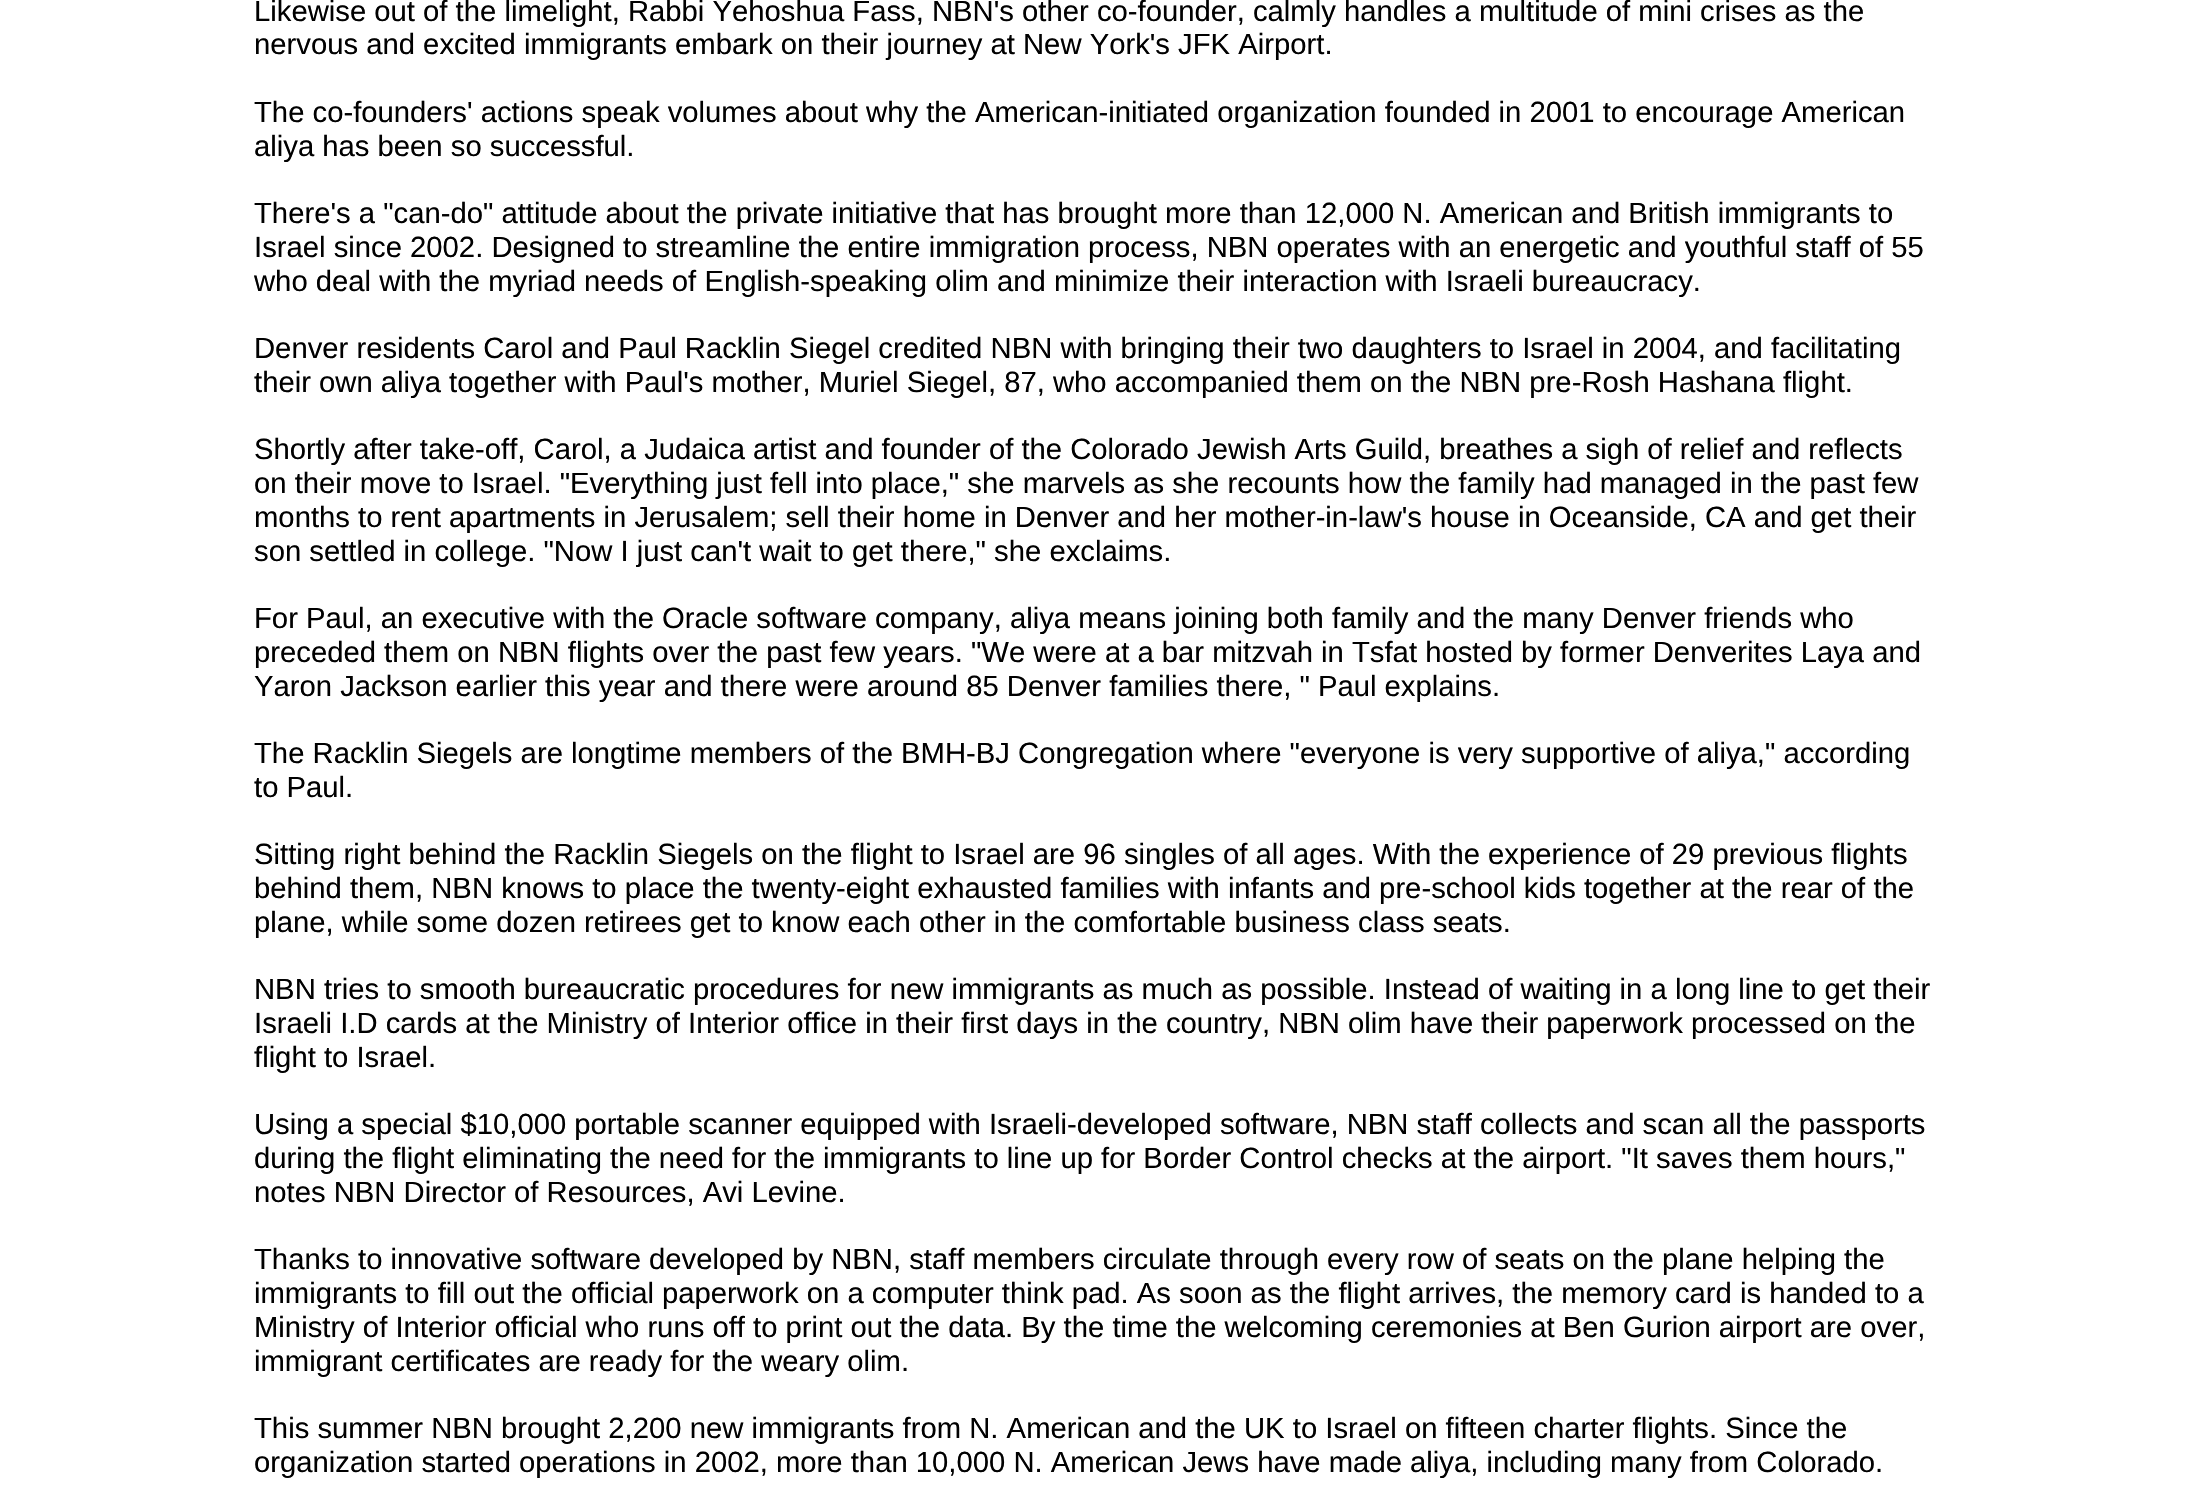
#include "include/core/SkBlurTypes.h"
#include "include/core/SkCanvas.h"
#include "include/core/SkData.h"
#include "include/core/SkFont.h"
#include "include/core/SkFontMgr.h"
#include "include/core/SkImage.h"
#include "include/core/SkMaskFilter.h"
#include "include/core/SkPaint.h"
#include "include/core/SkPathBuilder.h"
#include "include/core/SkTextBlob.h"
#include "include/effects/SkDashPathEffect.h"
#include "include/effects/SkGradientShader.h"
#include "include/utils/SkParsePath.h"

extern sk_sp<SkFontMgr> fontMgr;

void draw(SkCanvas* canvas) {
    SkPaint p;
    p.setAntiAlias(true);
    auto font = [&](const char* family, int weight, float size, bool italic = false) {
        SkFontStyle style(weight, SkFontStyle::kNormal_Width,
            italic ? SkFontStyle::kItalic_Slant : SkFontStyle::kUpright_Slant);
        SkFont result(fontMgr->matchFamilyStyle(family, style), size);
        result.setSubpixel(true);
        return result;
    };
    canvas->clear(0xFFFFFFFF);
    auto font1 = font("Liberation Sans", 400, 29.25f);
    p.setColor(0xFF000000);
    {
        const struct { const char* s; float x, y; } items[] = {
            {"Likewise out of the limelight, Rabbi Yehoshua Fass, NBN's other co-founder, calmly handles a multitude of mini crises as the", 254, 21},
            {"nervous and excited immigrants embark on their journey at New York's JFK Airport.", 254, 54},
            {"The co-founders' actions speak volumes about why the American-initiated organization founded in 2001 to encourage American", 254, 122},
            {"aliya has been so successful.", 254, 156},
            {"There's a \"can-do\" attitude about the private initiative that has brought more than 12,000 N. American and British immigrants to", 254, 223},
            {"Israel since 2002. Designed to streamline the entire immigration process, NBN operates with an energetic and youthful staff of 55", 254, 257},
            {"who deal with the myriad needs of English-speaking olim and minimize their interaction with Israeli bureaucracy.", 254, 291},
            {"Denver residents Carol and Paul Racklin Siegel credited NBN with bringing their two daughters to Israel in 2004, and facilitating", 254, 358},
            {"their own aliya together with Paul's mother, Muriel Siegel, 87, who accompanied them on the NBN pre-Rosh Hashana flight.", 254, 392},
            {"Shortly after take-off, Carol, a Judaica artist and founder of the Colorado Jewish Arts Guild, breathes a sigh of relief and reflects", 254, 459},
            {"on their move to Israel. \"Everything just fell into place,\" she marvels as she recounts how the family had managed in the past few", 254, 493},
            {"months to rent apartments in Jerusalem; sell their home in Denver and her mother-in-law's house in Oceanside, CA and get their", 254, 527},
            {"son settled in college. \"Now I just can't wait to get there,\" she exclaims.", 254, 561},
            {"For Paul, an executive with the Oracle software company, aliya means joining both family and the many Denver friends who", 254, 628},
            {"preceded them on NBN flights over the past few years. \"We were at a bar mitzvah in Tsfat hosted by former Denverites Laya and", 254, 662},
            {"Yaron Jackson earlier this year and there were around 85 Denver families there, \" Paul explains.", 254, 696},
            {"The Racklin Siegels are longtime members of the BMH-BJ Congregation where \"everyone is very supportive of aliya,\" according", 254, 763},
            {"to Paul.", 254, 797},
            {"Sitting right behind the Racklin Siegels on the flight to Israel are 96 singles of all ages. With the experience of 29 previous flights", 254, 864},
            {"behind them, NBN knows to place the twenty-eight exhausted families with infants and pre-school kids together at the rear of the", 254, 898},
            {"plane, while some dozen retirees get to know each other in the comfortable business class seats.", 254, 932},
            {"NBN tries to smooth bureaucratic procedures for new immigrants as much as possible. Instead of waiting in a long line to get their", 254, 999},
            {"Israeli I.D cards at the Ministry of Interior office in their first days in the country, NBN olim have their paperwork processed on the", 254, 1033},
            {"flight to Israel.", 254, 1067},
            {"Using a special $10,000 portable scanner equipped with Israeli-developed software, NBN staff collects and scan all the passports", 254, 1134},
            {"during the flight eliminating the need for the immigrants to line up for Border Control checks at the airport. \"It saves them hours,\"", 254, 1168},
            {"notes NBN Director of Resources, Avi Levine.", 254, 1202},
            {"Thanks to innovative software developed by NBN, staff members circulate through every row of seats on the plane helping the", 254, 1269},
            {"immigrants to fill out the official paperwork on a computer think pad. As soon as the flight arrives, the memory card is handed to a", 254, 1303},
            {"Ministry of Interior official who runs off to print out the data. By the time the welcoming ceremonies at Ben Gurion airport are over,", 254, 1337},
            {"immigrant certificates are ready for the weary olim.", 254, 1371},
            {"This summer NBN brought 2,200 new immigrants from N. American and the UK to Israel on fifteen charter flights. Since the", 254, 1438},
            {"organization started operations in 2002, more than 10,000 N. American Jews have made aliya, including many from Colorado.", 254, 1472},
        };
        for (auto [s, x, y] : items) {
            canvas->drawString(s, x, y, font1, p);
        }
    }
}
